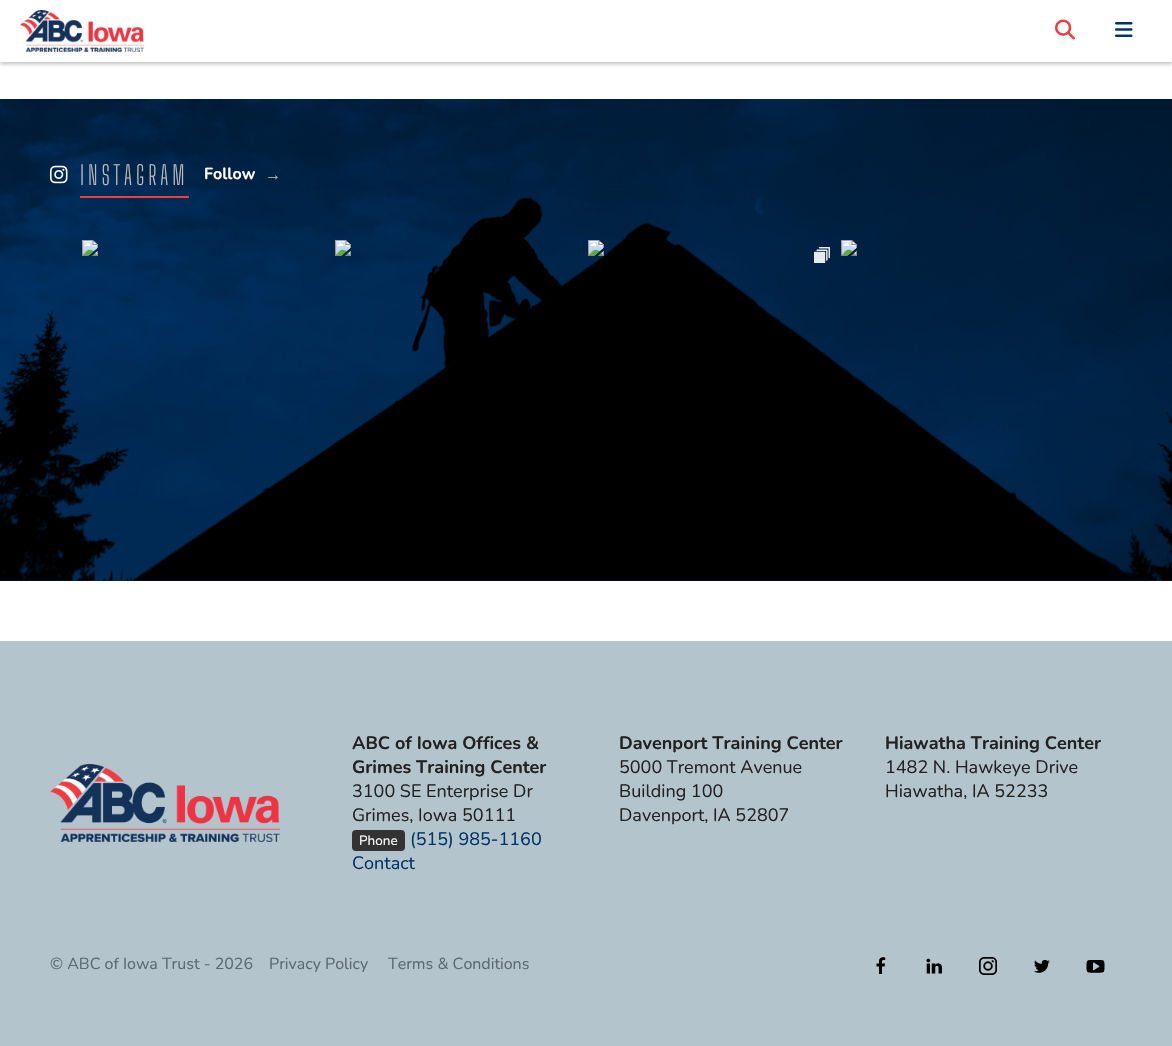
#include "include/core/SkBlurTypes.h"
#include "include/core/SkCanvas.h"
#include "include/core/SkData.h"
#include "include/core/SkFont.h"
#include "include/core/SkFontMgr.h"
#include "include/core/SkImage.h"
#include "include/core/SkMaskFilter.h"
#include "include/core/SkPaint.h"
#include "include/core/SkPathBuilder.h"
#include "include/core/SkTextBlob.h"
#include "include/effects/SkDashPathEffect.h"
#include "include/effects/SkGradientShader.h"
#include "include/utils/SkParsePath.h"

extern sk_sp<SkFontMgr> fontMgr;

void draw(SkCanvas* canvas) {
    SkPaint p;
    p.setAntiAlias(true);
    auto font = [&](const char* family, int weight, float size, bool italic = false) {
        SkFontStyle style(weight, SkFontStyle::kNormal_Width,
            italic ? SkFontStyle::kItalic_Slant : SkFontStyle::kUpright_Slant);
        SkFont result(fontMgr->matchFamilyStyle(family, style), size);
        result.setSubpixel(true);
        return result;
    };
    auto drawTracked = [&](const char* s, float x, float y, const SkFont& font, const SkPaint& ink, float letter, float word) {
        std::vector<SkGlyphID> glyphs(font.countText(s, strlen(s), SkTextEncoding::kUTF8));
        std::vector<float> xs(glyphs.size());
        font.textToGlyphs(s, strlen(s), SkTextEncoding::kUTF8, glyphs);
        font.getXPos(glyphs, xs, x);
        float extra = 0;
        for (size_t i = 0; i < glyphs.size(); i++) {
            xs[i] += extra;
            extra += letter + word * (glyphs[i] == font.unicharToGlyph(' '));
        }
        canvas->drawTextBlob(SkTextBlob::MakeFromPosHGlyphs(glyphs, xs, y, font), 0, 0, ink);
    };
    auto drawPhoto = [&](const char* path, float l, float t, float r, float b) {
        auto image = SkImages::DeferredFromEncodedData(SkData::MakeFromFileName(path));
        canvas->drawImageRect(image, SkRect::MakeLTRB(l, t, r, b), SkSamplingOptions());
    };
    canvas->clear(0xFFFFFFFF);
    canvas->save();
    canvas->clipRect(SkRect::MakeLTRB(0, 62, 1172, 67));
    p.setColor(0x807F7F7F);
    p.setMaskFilter(SkMaskFilter::MakeBlur(kNormal_SkBlurStyle, 2));
    canvas->drawRect(SkRect::MakeLTRB(0, 2, 1172, 64), p);
    p.setMaskFilter(nullptr);
    canvas->restore();
    drawPhoto("media/1.png", 20, 10, 144, 52);
    drawPhoto("media/2.png", 1055, 19, 1075, 40);
    drawPhoto("media/3.png", 1115, 22, 1133, 37);
    drawPhoto("media/4.png", 0, 99, 1172, 581);
    drawPhoto("media/5.png", 50, 165, 68, 184);
    auto font1 = font("Big Shoulders Display", 300, 26);
    p.setColor(0xFFBCBCBC);
    drawTracked("INSTAGRAM", 80, 185, font1, p, 4, 0);
    p.setColor(0xFFEE3E42);
    canvas->drawRect(SkRect::MakeLTRB(80, 196, 189, 198), p);
    auto font2 = font("Nunito", 700, 16);
    p.setColor(0xFFFFFFFF);
    canvas->drawString("Follow", 204, 179, font2, p);
    auto font3 = font("Liberation Sans", 700, 16);
    p.setColor(0xFFBCBCBC);
    canvas->drawString("→", 265, 180, font3, p);
    drawPhoto("media/6.png", 82, 240, 857, 263);
    p.setColor(0xFFB4C4CD);
    canvas->drawRect(SkRect::MakeLTRB(0, 641, 1172, 1046), p);
    drawPhoto("media/7.png", 50, 764, 280, 842);
    auto font4 = font("Nunito", 700, 18);
    p.setColor(0xFF222222);
    canvas->drawString("ABC of Iowa Offices &", 352, 749, font4, p);
    canvas->drawString("Grimes Training Center", 352, 773, font4, p);
    auto font5 = font("Nunito", 400, 18);
    canvas->drawString("3100 SE Enterprise Dr", 352, 797, font5, p);
    canvas->drawString("Grimes, Iowa 50111", 352, 821, font5, p);
    p.setColor(0xFF333333);
    canvas->drawRoundRect(SkRect::MakeLTRB(352, 830, 405, 851), 4, 4, p);
    auto font6 = font("Nunito", 400, 13.5f);
    p.setColor(0xFFFFFFFF);
    canvas->drawString("Phone", 359, 845, font6, p);
    p.setColor(0xFF003366);
    canvas->drawString("(515) 985-1160", 410, 845, font5, p);
    canvas->drawString("Contact", 352, 869, font5, p);
    p.setColor(0xFF222222);
    canvas->drawString("Davenport Training Center", 619, 749, font4, p);
    {
        const struct { const char* s; float x, y; } items[] = {
            {"5000 Tremont Avenue", 619, 773},
            {"Building 100", 619, 797},
            {"Davenport, IA 52807", 619, 821},
        };
        for (auto [s, x, y] : items) {
            canvas->drawString(s, x, y, font5, p);
        }
    }
    canvas->drawString("Hiawatha Training Center", 885, 749, font4, p);
    canvas->drawString("1482 N. Hawkeye Drive", 885, 773, font5, p);
    canvas->drawString("Hiawatha, IA 52233", 885, 797, font5, p);
    auto font7 = font("Nunito", 400, 16);
    p.setColor(0xFF5C6970);
    {
        const struct { const char* s; float x, y; } items[] = {
            {"© ABC of Iowa Trust - 2026", 50, 969},
            {"Privacy Policy", 269, 969},
            {"Terms & Conditions", 388, 969},
        };
        for (auto [s, x, y] : items) {
            canvas->drawString(s, x, y, font7, p);
        }
    }
    drawPhoto("media/8.png", 876, 957, 886, 974);
    drawPhoto("media/9.png", 926, 958, 942, 974);
    drawPhoto("media/10.png", 979, 957, 997, 975);
    drawPhoto("media/11.png", 1034, 960, 1050, 973);
    drawPhoto("media/12.png", 1086, 960, 1105, 973);
}
